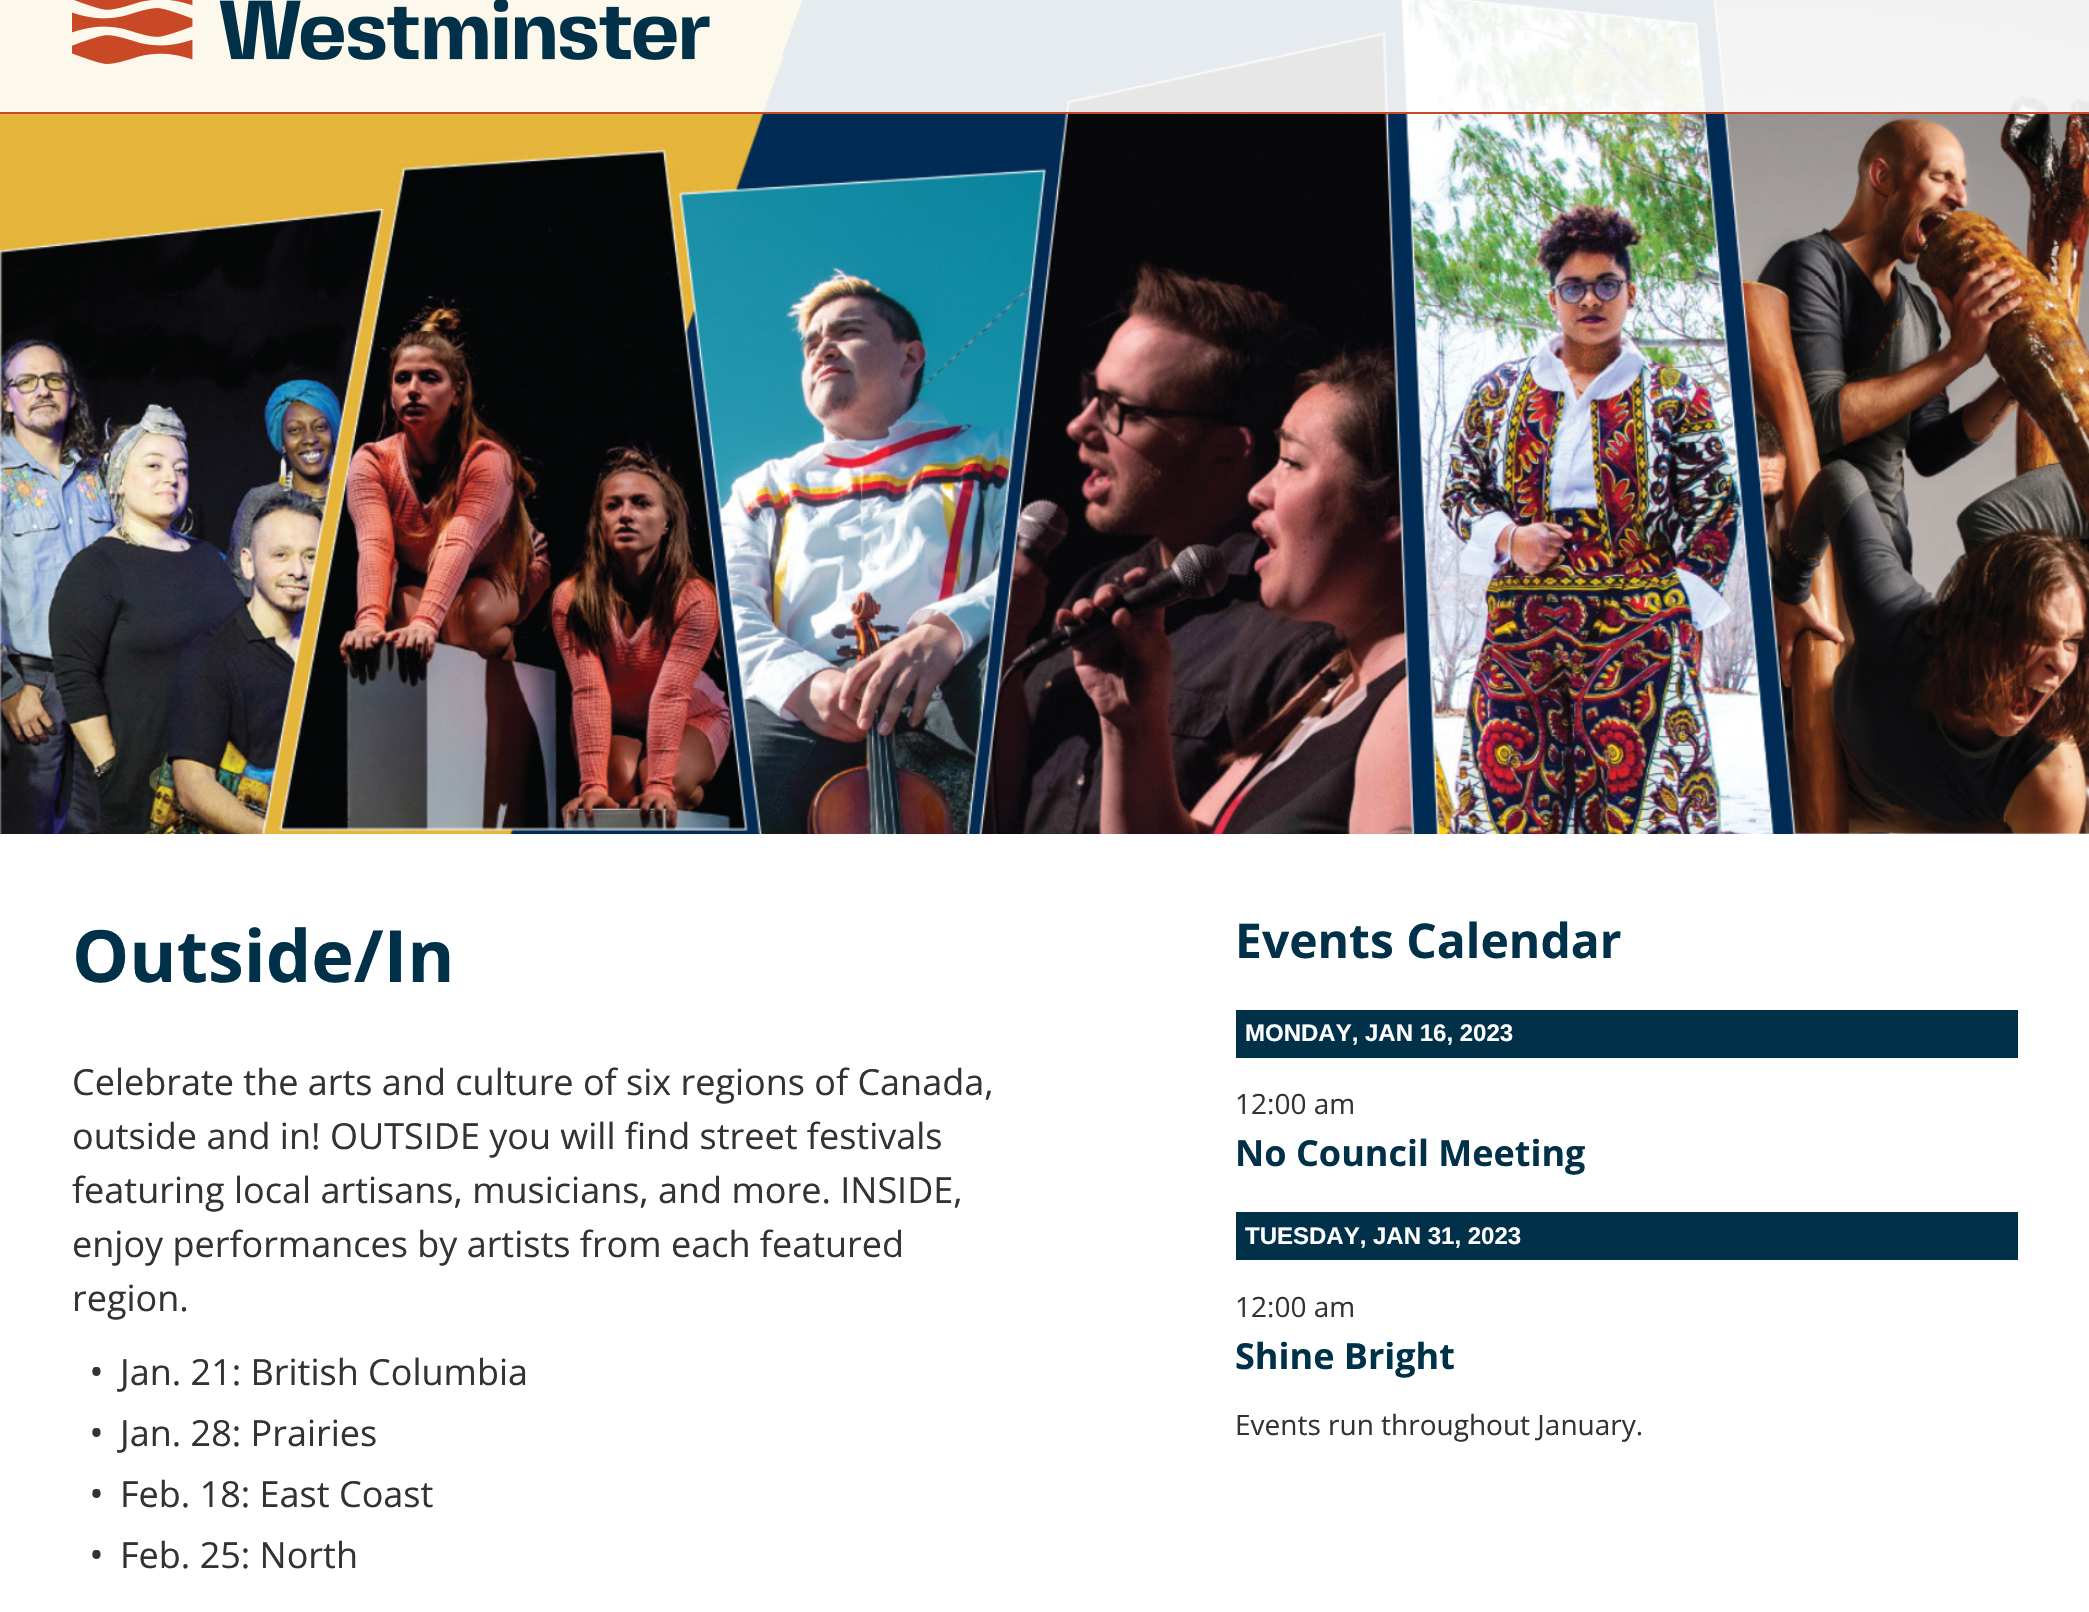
#include "include/core/SkBlurTypes.h"
#include "include/core/SkCanvas.h"
#include "include/core/SkData.h"
#include "include/core/SkFont.h"
#include "include/core/SkFontMgr.h"
#include "include/core/SkImage.h"
#include "include/core/SkMaskFilter.h"
#include "include/core/SkPaint.h"
#include "include/core/SkPathBuilder.h"
#include "include/core/SkTextBlob.h"
#include "include/effects/SkDashPathEffect.h"
#include "include/effects/SkGradientShader.h"
#include "include/utils/SkParsePath.h"

extern sk_sp<SkFontMgr> fontMgr;

void draw(SkCanvas* canvas) {
    SkPaint p;
    p.setAntiAlias(true);
    auto font = [&](const char* family, int weight, float size, bool italic = false) {
        SkFontStyle style(weight, SkFontStyle::kNormal_Width,
            italic ? SkFontStyle::kItalic_Slant : SkFontStyle::kUpright_Slant);
        SkFont result(fontMgr->matchFamilyStyle(family, style), size);
        result.setSubpixel(true);
        return result;
    };
    auto drawPhoto = [&](const char* path, float l, float t, float r, float b) {
        auto image = SkImages::DeferredFromEncodedData(SkData::MakeFromFileName(path));
        canvas->drawImageRect(image, SkRect::MakeLTRB(l, t, r, b), SkSamplingOptions());
    };
    canvas->clear(0xFFFFFFFF);
    drawPhoto("media/2.png", 0, 0, 2089, 834);
    p.setColor(0xE6FFFFFF);
    canvas->drawRect(SkRect::MakeLTRB(0, 0, 2089, 112), p);
    p.setColor(0xFFC94927);
    canvas->drawRect(SkRect::MakeLTRB(0, 112, 2089, 114), p);
    drawPhoto("media/1.png", 72, 0, 710, 64);
    auto font1 = font("Open Sans", 700, 72);
    p.setColor(0xFF003149);
    canvas->drawString("Outside/In", 72, 982, font1, p);
    auto font2 = font("Open Sans", 400, 36);
    p.setColor(0xFF333333);
    {
        const struct { const char* s; float x, y; } items[] = {
            {"Celebrate the arts and culture of six regions of Canada,", 72, 1095},
            {"outside and in! OUTSIDE you will find street festivals", 72, 1149},
            {"featuring local artisans, musicians, and more. INSIDE,", 72, 1203},
            {"enjoy performances by artists from each featured", 72, 1257},
            {"region.", 72, 1311},
        };
        for (auto [s, x, y] : items) {
            canvas->drawString(s, x, y, font2, p);
        }
    }
    auto font3 = font("Open Sans", 700, 29);
    canvas->drawString("•", 91, 1382, font3, p);
    canvas->drawString("Jan. 21: British Columbia", 120, 1385, font2, p);
    canvas->drawString("•", 91, 1443, font3, p);
    canvas->drawString("Jan. 28: Prairies", 120, 1446, font2, p);
    canvas->drawString("•", 91, 1504, font3, p);
    canvas->drawString("Feb. 18: East Coast", 120, 1507, font2, p);
    canvas->drawString("•", 91, 1565, font3, p);
    canvas->drawString("Feb. 25: North", 120, 1568, font2, p);
    auto font4 = font("Open Sans", 700, 48);
    p.setColor(0xFF003149);
    canvas->drawString("Events Calendar", 1235, 958, font4, p);
    canvas->drawRect(SkRect::MakeLTRB(1236, 1010, 2018, 1058), p);
    auto font5 = font("Liberation Sans", 700, 24);
    p.setColor(0xFFFFFFFF);
    canvas->drawString("MONDAY, JAN 16, 2023", 1245, 1041, font5, p);
    auto font6 = font("Open Sans", 400, 28);
    p.setColor(0xFF333333);
    canvas->drawString("12:00 am", 1235, 1114, font6, p);
    auto font7 = font("Open Sans", 700, 36);
    p.setColor(0xFF003149);
    canvas->drawString("No Council Meeting", 1235, 1166, font7, p);
    canvas->drawRect(SkRect::MakeLTRB(1236, 1212, 2018, 1260), p);
    p.setColor(0xFFFFFFFF);
    canvas->drawString("TUESDAY, JAN 31, 2023", 1245, 1244, font5, p);
    p.setColor(0xFF333333);
    canvas->drawString("12:00 am", 1235, 1317, font6, p);
    p.setColor(0xFF003149);
    canvas->drawString("Shine Bright", 1235, 1369, font7, p);
    p.setColor(0xFF333333);
    canvas->drawString("Events run throughout January.", 1235, 1435, font6, p);
}
